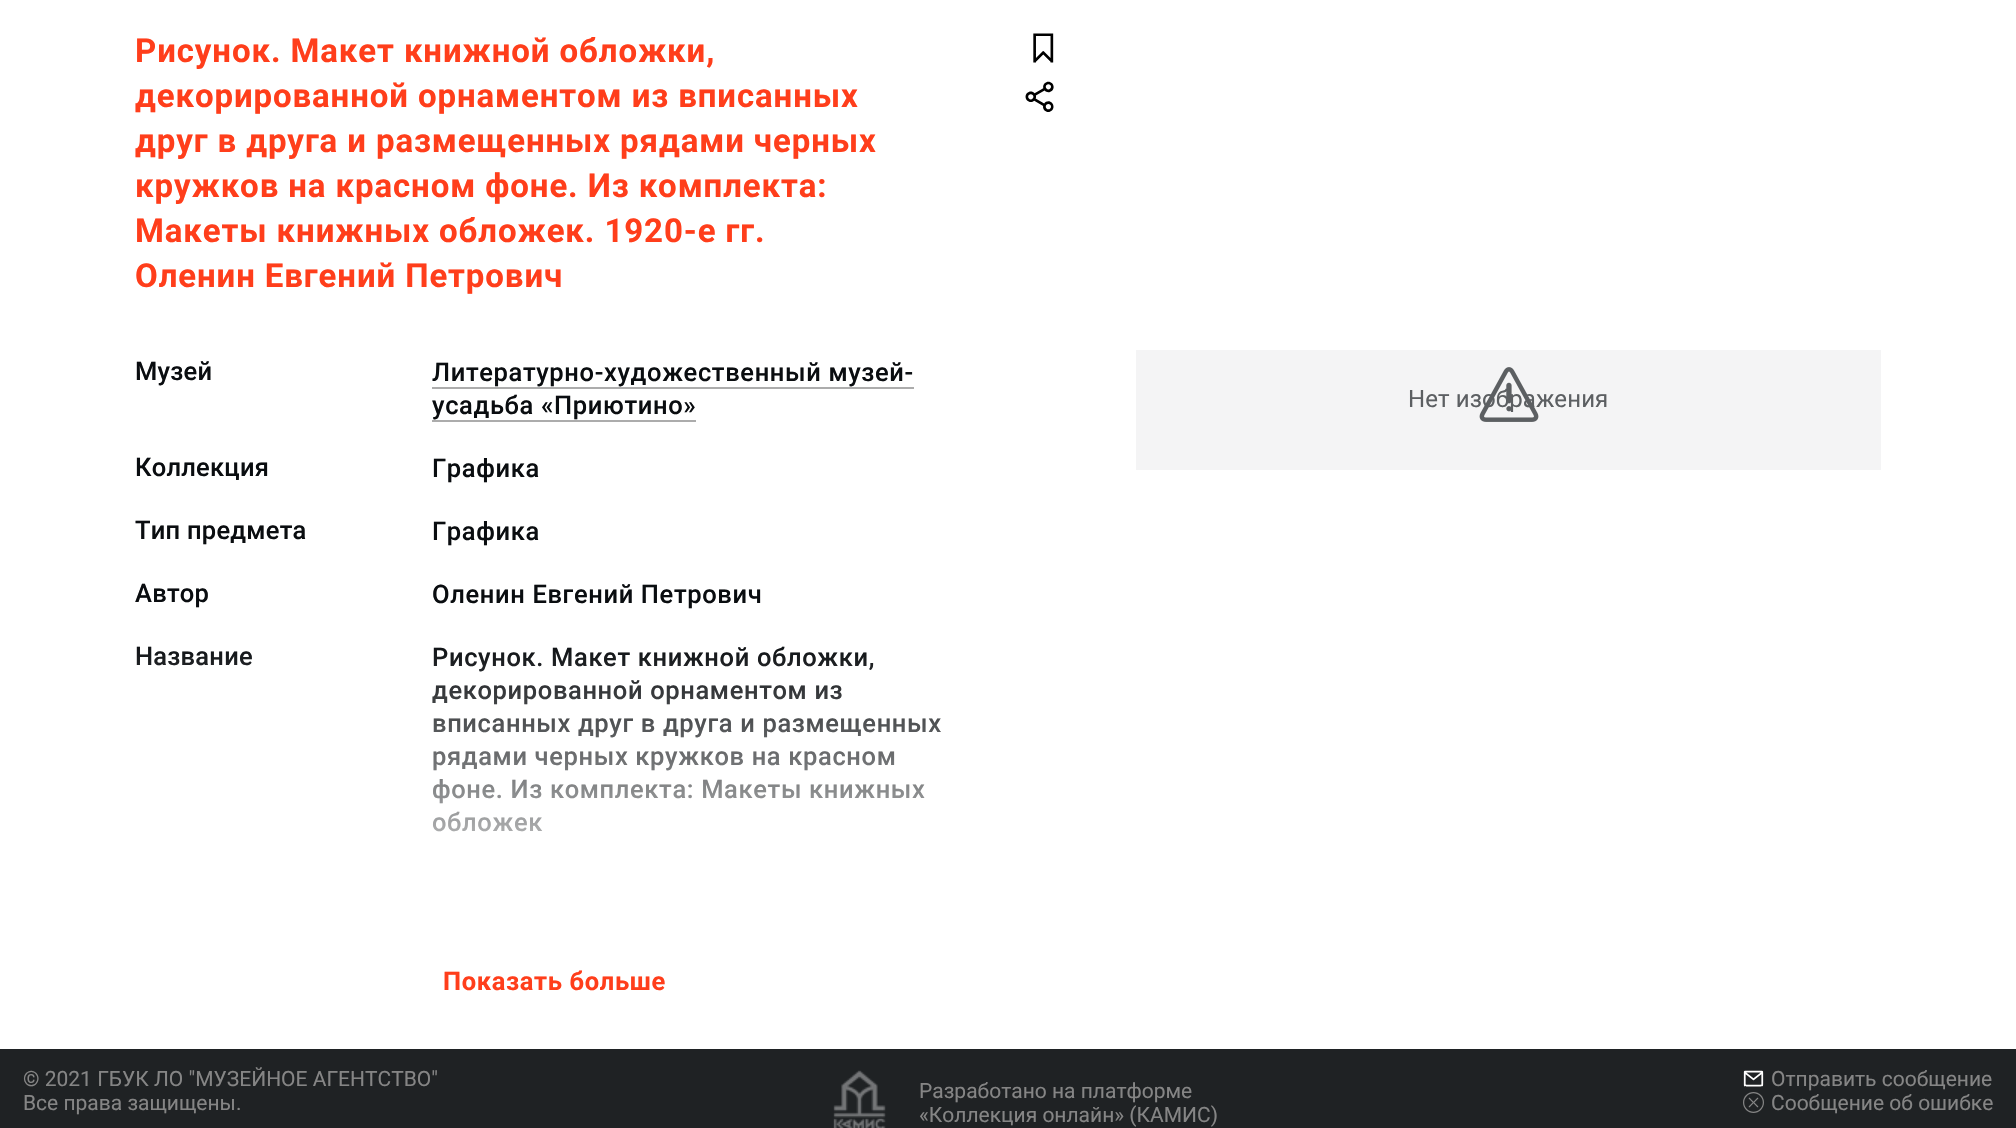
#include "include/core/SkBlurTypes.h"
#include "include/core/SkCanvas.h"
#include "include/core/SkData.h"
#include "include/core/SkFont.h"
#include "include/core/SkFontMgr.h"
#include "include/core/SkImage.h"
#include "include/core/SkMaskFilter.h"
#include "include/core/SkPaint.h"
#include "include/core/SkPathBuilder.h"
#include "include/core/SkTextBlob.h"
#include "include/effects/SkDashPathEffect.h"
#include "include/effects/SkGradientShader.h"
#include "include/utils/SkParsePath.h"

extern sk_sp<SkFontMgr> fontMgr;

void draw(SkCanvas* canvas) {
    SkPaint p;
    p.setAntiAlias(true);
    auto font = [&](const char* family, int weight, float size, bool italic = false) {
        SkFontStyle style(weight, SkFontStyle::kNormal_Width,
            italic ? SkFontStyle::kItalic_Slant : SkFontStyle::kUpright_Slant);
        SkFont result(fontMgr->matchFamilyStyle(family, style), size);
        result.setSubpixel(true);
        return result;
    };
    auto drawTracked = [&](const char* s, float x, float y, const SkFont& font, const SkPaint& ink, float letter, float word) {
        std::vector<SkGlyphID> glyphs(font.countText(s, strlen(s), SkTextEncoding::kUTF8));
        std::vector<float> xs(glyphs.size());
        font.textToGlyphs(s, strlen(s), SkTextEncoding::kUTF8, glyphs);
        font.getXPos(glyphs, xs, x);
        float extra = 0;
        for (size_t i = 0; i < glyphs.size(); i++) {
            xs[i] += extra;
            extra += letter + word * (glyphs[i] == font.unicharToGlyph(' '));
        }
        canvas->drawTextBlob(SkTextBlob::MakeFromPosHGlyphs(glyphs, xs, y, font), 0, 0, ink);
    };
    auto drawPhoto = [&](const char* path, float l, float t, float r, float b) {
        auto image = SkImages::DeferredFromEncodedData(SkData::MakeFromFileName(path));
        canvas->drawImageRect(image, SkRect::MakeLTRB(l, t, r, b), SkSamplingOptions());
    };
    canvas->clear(0xFFFFFFFF);
    auto font1 = font("Roboto", 700, 33);
    p.setColor(0xFFFF3E1B);
    {
        const struct { const char* s; float x, y; } items[] = {
            {"Рисунок. Макет книжной обложки,", 135, 62},
            {"декорированной орнаментом из вписанных", 135, 107},
            {"друг в друга и размещенных рядами черных", 135, 152},
            {"кружков на красном фоне. Из комплекта:", 135, 197},
            {"Макеты книжных обложек. 1920-е гг.", 135, 242},
            {"Оленин Евгений Петрович", 135, 287},
        };
        for (auto [s, x, y] : items) {
            drawTracked(s, x, y, font1, p, 0.9f, 0);
        }
    }
    drawPhoto("media/1.png", 1033, 33, 1054, 63);
    drawPhoto("media/2.png", 1025, 81, 1054, 112);
    auto font2 = font("Roboto", 500, 25.5f);
    p.setColor(0xFF0A0D10);
    drawTracked("Музей", 135, 380, font2, p, 0.25f, 0);
    drawTracked("Литературно-художественный музей-", 432, 381, font2, p, 0.65f, 0);
    p.setColor(0xFFACACAC);
    canvas->drawRect(SkRect::MakeLTRB(432, 387, 914, 389), p);
    p.setColor(0xFF0A0D10);
    drawTracked("усадьба «Приютино»", 432, 414, font2, p, 0.65f, 0);
    p.setColor(0xFFACACAC);
    canvas->drawRect(SkRect::MakeLTRB(432, 420, 696, 422), p);
    p.setColor(0xFF0A0D10);
    drawTracked("Коллекция", 135, 476, font2, p, 0.25f, 0);
    drawTracked("Графика", 432, 477, font2, p, 0.65f, 0);
    drawTracked("Тип предмета", 135, 539, font2, p, 0.25f, 0);
    drawTracked("Графика", 432, 540, font2, p, 0.65f, 0);
    drawTracked("Автор", 135, 602, font2, p, 0.25f, 0);
    drawTracked("Оленин Евгений Петрович", 432, 603, font2, p, 0.65f, 0);
    drawTracked("Название", 135, 665, font2, p, 0.25f, 0);
    {
        const struct { const char* s; float x, y; } items[] = {
            {"Рисунок. Макет книжной обложки,", 432, 666},
            {"декорированной орнаментом из", 432, 699},
            {"вписанных друг в друга и размещенных", 432, 732},
            {"рядами черных кружков на красном", 432, 765},
            {"фоне. Из комплекта: Макеты книжных", 432, 798},
            {"обложек", 432, 831},
        };
        for (auto [s, x, y] : items) {
            drawTracked(s, x, y, font2, p, 0.65f, 0);
        }
    }
    {
        const SkColor colors[] = {0x03FFFFFF, 0xFFFFFFFF};
        const float stops[] = {0, 0.8f};
        const SkPoint ends[] = {{554, 644}, {554, 1004}};
        p.setShader(SkGradientShader::MakeLinear(ends, colors, stops, 2, SkTileMode::kClamp));
        p.setAlpha(255);
    }
    canvas->drawRect(SkRect::MakeLTRB(136, 647, 940, 832), p);
    auto font3 = font("Roboto", 700, 25.5f);
    p.setShader(nullptr);
    p.setColor(0xFFFF3E1B);
    drawTracked("Показать больше", 443, 990, font3, p, 0.65f, 0);
    p.setColor(0xFFF4F4F5);
    canvas->drawRect(SkRect::MakeLTRB(1136, 350, 1881, 470), p);
    auto font4 = font("Roboto", 400, 24);
    p.setColor(0xFF5C5F62);
    drawTracked("Нет изображения", 1408, 407, font4, p, 0.1f, 0);
    drawPhoto("media/3.png", 1479, 367, 1539, 422);
    p.setColor(0xFF1F2224);
    canvas->drawRect(SkRect::MakeLTRB(0, 1049, 2016, 1128), p);
    auto font5 = font("Roboto", 400, 21);
    p.setColor(0xFF858585);
    canvas->drawString("© 2021 ГБУК ЛО \"МУЗЕЙНОЕ АГЕНТСТВО\"", 23, 1086, font5, p);
    canvas->drawString("Все права защищены.", 23, 1110, font5, p);
    drawPhoto("media/4.png", 833, 1070, 886, 1128);
    canvas->drawString("Разработано на платформе", 919, 1098, font5, p);
    canvas->drawString("«Коллекция онлайн» (КАМИС)", 919, 1122, font5, p);
    drawPhoto("media/5.png", 1743, 1070, 1764, 1087);
    canvas->drawString("Отправить сообщение", 1771, 1086, font5, p);
    drawPhoto("media/6.png", 1743, 1092, 1764, 1113);
    canvas->drawString("Сообщение об ошибке", 1771, 1110, font5, p);
}
